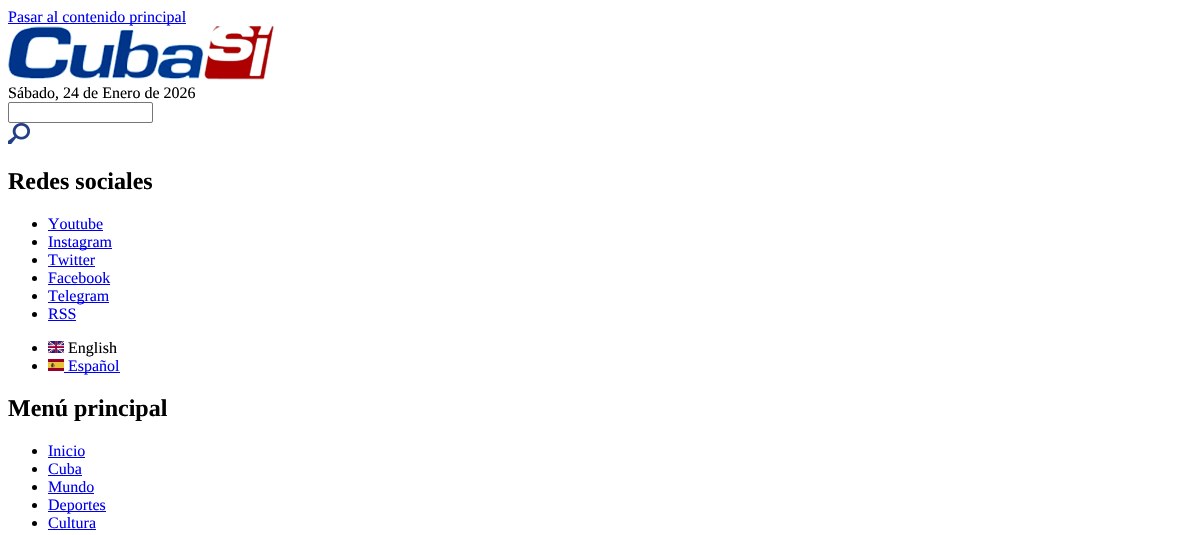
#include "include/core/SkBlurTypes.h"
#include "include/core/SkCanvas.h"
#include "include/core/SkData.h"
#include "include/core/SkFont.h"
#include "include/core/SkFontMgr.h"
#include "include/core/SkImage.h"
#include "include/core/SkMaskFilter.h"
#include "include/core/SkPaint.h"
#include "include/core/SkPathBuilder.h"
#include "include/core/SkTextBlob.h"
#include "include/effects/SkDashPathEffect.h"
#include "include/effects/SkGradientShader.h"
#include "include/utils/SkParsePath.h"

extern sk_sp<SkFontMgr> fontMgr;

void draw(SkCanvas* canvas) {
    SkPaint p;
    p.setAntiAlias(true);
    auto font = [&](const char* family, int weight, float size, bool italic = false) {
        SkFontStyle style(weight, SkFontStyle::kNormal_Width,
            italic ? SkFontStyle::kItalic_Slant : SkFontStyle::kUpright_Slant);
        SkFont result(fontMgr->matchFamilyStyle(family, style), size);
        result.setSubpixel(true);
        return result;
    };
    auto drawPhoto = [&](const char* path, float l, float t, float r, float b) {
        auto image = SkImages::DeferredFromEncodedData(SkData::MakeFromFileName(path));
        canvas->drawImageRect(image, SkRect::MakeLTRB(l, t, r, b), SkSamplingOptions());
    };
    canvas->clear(0xFFFFFFFF);
    p.setColor(0xFF0000EE);
    canvas->drawRect(SkRect::MakeLTRB(8, 23, 186, 24), p);
    auto font1 = font("Liberation Serif", 400, 16);
    canvas->drawString("Pasar al contenido principal", 8, 22, font1, p);
    drawPhoto("media/1.png", 8, 26, 274, 80);
    p.setColor(0xFF000000);
    canvas->drawString("Sábado, 24 de Enero de 2026", 8, 98, font1, p);
    p.setStyle(SkPaint::kStroke_Style);
    p.setStrokeWidth(1);
    p.setColor(0xFF767676);
    canvas->drawRoundRect(SkRect::MakeLTRB(8.5f, 102.5f, 152.5f, 122.5f), 1.5f, 1.5f, p);
    drawPhoto("media/2.png", 8, 123, 30, 144);
    auto font2 = font("Liberation Serif", 700, 24);
    p.setStyle(SkPaint::kFill_Style);
    p.setColor(0xFF000000);
    canvas->drawString("Redes sociales", 8, 189, font2, p);
    canvas->drawCircle(34.5f, 224.5f, 2.5f, p);
    p.setColor(0xFF0000EE);
    canvas->drawString("Youtube", 48, 229, font1, p);
    canvas->drawRect(SkRect::MakeLTRB(48, 230, 103, 231), p);
    p.setColor(0xFF000000);
    canvas->drawCircle(34.5f, 242.5f, 2.5f, p);
    p.setColor(0xFF0000EE);
    canvas->drawRect(SkRect::MakeLTRB(48, 248, 112, 249), p);
    canvas->drawString("Instagram", 48, 247, font1, p);
    p.setColor(0xFF000000);
    canvas->drawCircle(34.5f, 260.5f, 2.5f, p);
    p.setColor(0xFF0000EE);
    canvas->drawString("Twitter", 48, 265, font1, p);
    canvas->drawRect(SkRect::MakeLTRB(48, 266, 95, 267), p);
    p.setColor(0xFF000000);
    canvas->drawCircle(34.5f, 278.5f, 2.5f, p);
    p.setColor(0xFF0000EE);
    canvas->drawString("Facebook", 48, 283, font1, p);
    canvas->drawRect(SkRect::MakeLTRB(48, 284, 110, 285), p);
    p.setColor(0xFF000000);
    canvas->drawCircle(34.5f, 296.5f, 2.5f, p);
    p.setColor(0xFF0000EE);
    canvas->drawRect(SkRect::MakeLTRB(48, 302, 109, 303), p);
    canvas->drawString("Telegram", 48, 301, font1, p);
    p.setColor(0xFF000000);
    canvas->drawCircle(34.5f, 314.5f, 2.5f, p);
    p.setColor(0xFF0000EE);
    canvas->drawString("RSS", 48, 319, font1, p);
    canvas->drawRect(SkRect::MakeLTRB(48, 320, 76, 321), p);
    p.setColor(0xFF000000);
    canvas->drawCircle(34.5f, 348.5f, 2.5f, p);
    drawPhoto("media/3.png", 48, 341, 64, 353);
    canvas->drawString("English", 68, 353, font1, p);
    canvas->drawCircle(34.5f, 366.5f, 2.5f, p);
    drawPhoto("media/4.png", 48, 359, 64, 371);
    p.setColor(0xFF0000EE);
    canvas->drawRect(SkRect::MakeLTRB(64, 372, 120, 373), p);
    canvas->drawString("Español", 68, 371, font1, p);
    p.setColor(0xFF000000);
    canvas->drawString("Menú principal", 8, 416, font2, p);
    canvas->drawCircle(34.5f, 451.5f, 2.5f, p);
    p.setColor(0xFF0000EE);
    canvas->drawString("Inicio", 48, 456, font1, p);
    canvas->drawRect(SkRect::MakeLTRB(48, 457, 85, 458), p);
    p.setColor(0xFF000000);
    canvas->drawCircle(34.5f, 469.5f, 2.5f, p);
    p.setColor(0xFF0000EE);
    canvas->drawString("Cuba", 48, 474, font1, p);
    canvas->drawRect(SkRect::MakeLTRB(48, 475, 82, 476), p);
    p.setColor(0xFF000000);
    canvas->drawCircle(34.5f, 487.5f, 2.5f, p);
    p.setColor(0xFF0000EE);
    canvas->drawString("Mundo", 48, 492, font1, p);
    canvas->drawRect(SkRect::MakeLTRB(48, 493, 94, 494), p);
    p.setColor(0xFF000000);
    canvas->drawCircle(34.5f, 505.5f, 2.5f, p);
    p.setColor(0xFF0000EE);
    canvas->drawRect(SkRect::MakeLTRB(48, 511, 106, 512), p);
    canvas->drawString("Deportes", 48, 510, font1, p);
    p.setColor(0xFF000000);
    canvas->drawCircle(34.5f, 523.5f, 2.5f, p);
    p.setColor(0xFF0000EE);
    canvas->drawString("Cultura", 48, 528, font1, p);
    canvas->drawRect(SkRect::MakeLTRB(48, 529, 96, 530), p);
}
